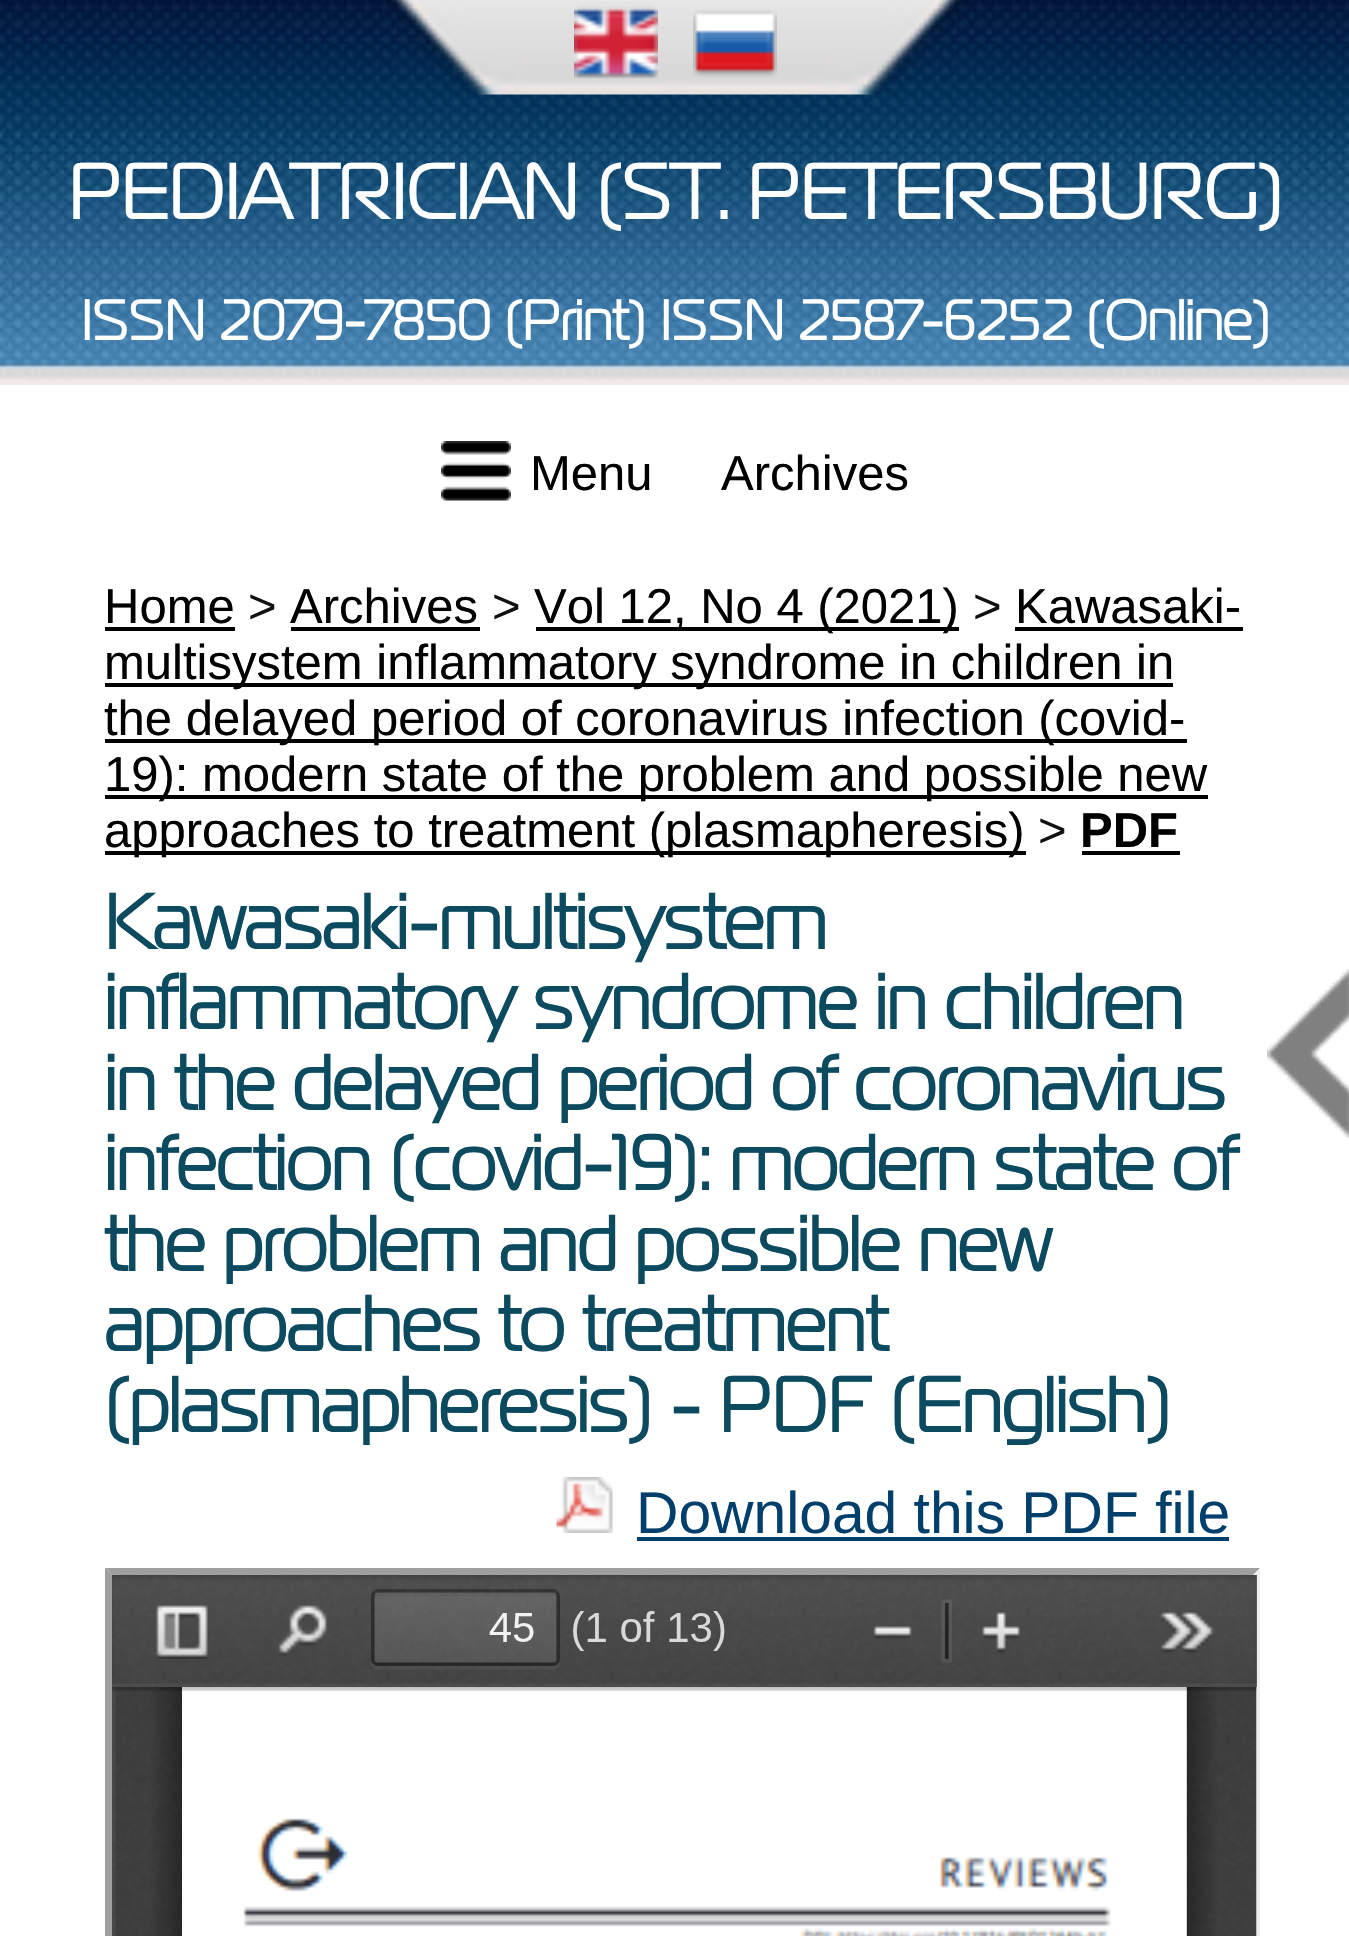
#include "include/core/SkBlurTypes.h"
#include "include/core/SkCanvas.h"
#include "include/core/SkData.h"
#include "include/core/SkFont.h"
#include "include/core/SkFontMgr.h"
#include "include/core/SkImage.h"
#include "include/core/SkMaskFilter.h"
#include "include/core/SkPaint.h"
#include "include/core/SkPathBuilder.h"
#include "include/core/SkTextBlob.h"
#include "include/effects/SkDashPathEffect.h"
#include "include/effects/SkGradientShader.h"
#include "include/utils/SkParsePath.h"

extern sk_sp<SkFontMgr> fontMgr;

void draw(SkCanvas* canvas) {
    SkPaint p;
    p.setAntiAlias(true);
    auto font = [&](const char* family, int weight, float size, bool italic = false) {
        SkFontStyle style(weight, SkFontStyle::kNormal_Width,
            italic ? SkFontStyle::kItalic_Slant : SkFontStyle::kUpright_Slant);
        SkFont result(fontMgr->matchFamilyStyle(family, style), size);
        result.setSubpixel(true);
        return result;
    };
    auto drawPhoto = [&](const char* path, float l, float t, float r, float b) {
        auto image = SkImages::DeferredFromEncodedData(SkData::MakeFromFileName(path));
        canvas->drawImageRect(image, SkRect::MakeLTRB(l, t, r, b), SkSamplingOptions());
    };
    canvas->clear(0xFFFFFFFF);
    drawPhoto("media/1.png", 0, 0, 1349, 385);
    drawPhoto("media/2.png", 382, 0, 969, 95);
    drawPhoto("media/3.png", 574, 6, 658, 79);
    drawPhoto("media/4.png", 693, 10, 777, 77);
    auto font1 = font("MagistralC", 700, 77);
    p.setColor(0xFFFFFFFF);
    canvas->drawString("PEDIATRICIAN (ST. PETERSBURG)", 68, 219, font1, p);
    auto font2 = font("MagistralC", 700, 56);
    canvas->drawString("ISSN 2079-7850 (Print)", 81, 340, font2, p);
    canvas->drawString("ISSN 2587-6252 (Online)", 660, 340, font2, p);
    drawPhoto("media/5.png", 441, 441, 511, 501);
    auto font3 = font("Liberation Sans", 400, 49);
    p.setColor(0xFF000000);
    {
        const struct { const char* s; float x, y; } items[] = {
            {"Menu", 530, 490},
            {"Archives", 721, 490},
            {"Home", 104, 623},
        };
        for (auto [s, x, y] : items) {
            canvas->drawString(s, x, y, font3, p);
        }
    }
    p.setColor(0xFF010101);
    canvas->drawRect(SkRect::MakeLTRB(105, 627, 235, 631), p);
    p.setColor(0xFF111111);
    canvas->drawString(">", 248, 623, font3, p);
    p.setColor(0xFF000000);
    canvas->drawString("Archives", 290, 623, font3, p);
    p.setColor(0xFF010101);
    canvas->drawRect(SkRect::MakeLTRB(291, 627, 480, 631), p);
    p.setColor(0xFF111111);
    canvas->drawString(">", 492, 623, font3, p);
    p.setColor(0xFF010101);
    canvas->drawRect(SkRect::MakeLTRB(536, 627, 959, 631), p);
    p.setColor(0xFF000000);
    canvas->drawString("Vol 12, No 4 (2021)", 534, 623, font3, p);
    p.setColor(0xFF111111);
    canvas->drawString(">", 973, 623, font3, p);
    p.setColor(0xFF000000);
    canvas->drawString("Kawasaki-", 1015, 623, font3, p);
    p.setColor(0xFF010101);
    canvas->drawRect(SkRect::MakeLTRB(1015, 627, 1243, 631), p);
    canvas->drawRect(SkRect::MakeLTRB(105, 683, 1173, 687), p);
    p.setColor(0xFF000000);
    canvas->drawString("multisystem inflammatory syndrome in children in", 104, 679, font3, p);
    p.setColor(0xFF010101);
    canvas->drawRect(SkRect::MakeLTRB(105, 739, 1187, 743), p);
    p.setColor(0xFF000000);
    canvas->drawString("the delayed period of coronavirus infection (covid-", 104, 735, font3, p);
    p.setColor(0xFF010101);
    canvas->drawRect(SkRect::MakeLTRB(105, 795, 1208, 799), p);
    p.setColor(0xFF000000);
    canvas->drawString("19): modern state of the problem and possible new", 104, 791, font3, p);
    p.setColor(0xFF010101);
    canvas->drawRect(SkRect::MakeLTRB(105, 851, 1026, 855), p);
    p.setColor(0xFF000000);
    canvas->drawString("approaches to treatment (plasmapheresis)", 104, 847, font3, p);
    p.setColor(0xFF111111);
    canvas->drawString(">", 1038, 847, font3, p);
    auto font4 = font("Liberation Sans", 700, 49);
    p.setColor(0xFF000000);
    canvas->drawString("PDF", 1080, 847, font4, p);
    p.setColor(0xFF010101);
    canvas->drawRect(SkRect::MakeLTRB(1082, 851, 1180, 855), p);
    p.setColor(0xFF0B4A5F);
    {
        const struct { const char* s; float x, y; } items[] = {
            {"Kawasaki-multisystem", 104, 949},
            {"inflammatory syndrome in children", 104, 1029},
            {"in the delayed period of coronavirus", 104, 1110},
            {"infection (covid-19): modern state of", 104, 1190},
            {"the problem and possible new", 104, 1271},
            {"approaches to treatment", 104, 1351},
            {"(plasmapheresis) - PDF (English)", 104, 1432},
        };
        for (auto [s, x, y] : items) {
            canvas->drawString(s, x, y, font1, p);
        }
    }
    drawPhoto("media/6.png", 556, 1477, 613, 1533);
    auto font5 = font("Liberation Sans", 400, 58.75f);
    p.setColor(0xFF003F6C);
    canvas->drawString("Download this PDF file", 636, 1533, font5, p);
    canvas->drawRect(SkRect::MakeLTRB(637, 1537, 1229, 1541), p);
    p.setColor(0xFF9F9F9F);
    canvas->drawPath(SkPathBuilder().moveTo(105, 1568).lineTo(1260, 1568).lineTo(1253, 1575).lineTo(112, 1575).close().detach(), p);
    canvas->drawPath(SkPathBuilder().moveTo(105, 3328).lineTo(105, 1568).lineTo(112, 1575).lineTo(112, 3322).close().detach(), p);
    p.setColor(0xFFEEEEEE);
    canvas->drawPath(SkPathBuilder().moveTo(1260, 1568).lineTo(1260, 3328).lineTo(1253, 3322).lineTo(1253, 1575).close().detach(), p);
    drawPhoto("media/7.png", 112, 1575, 1257, 1936);
    drawPhoto("media/8.png", 1267, 969, 1349, 1138);
}
